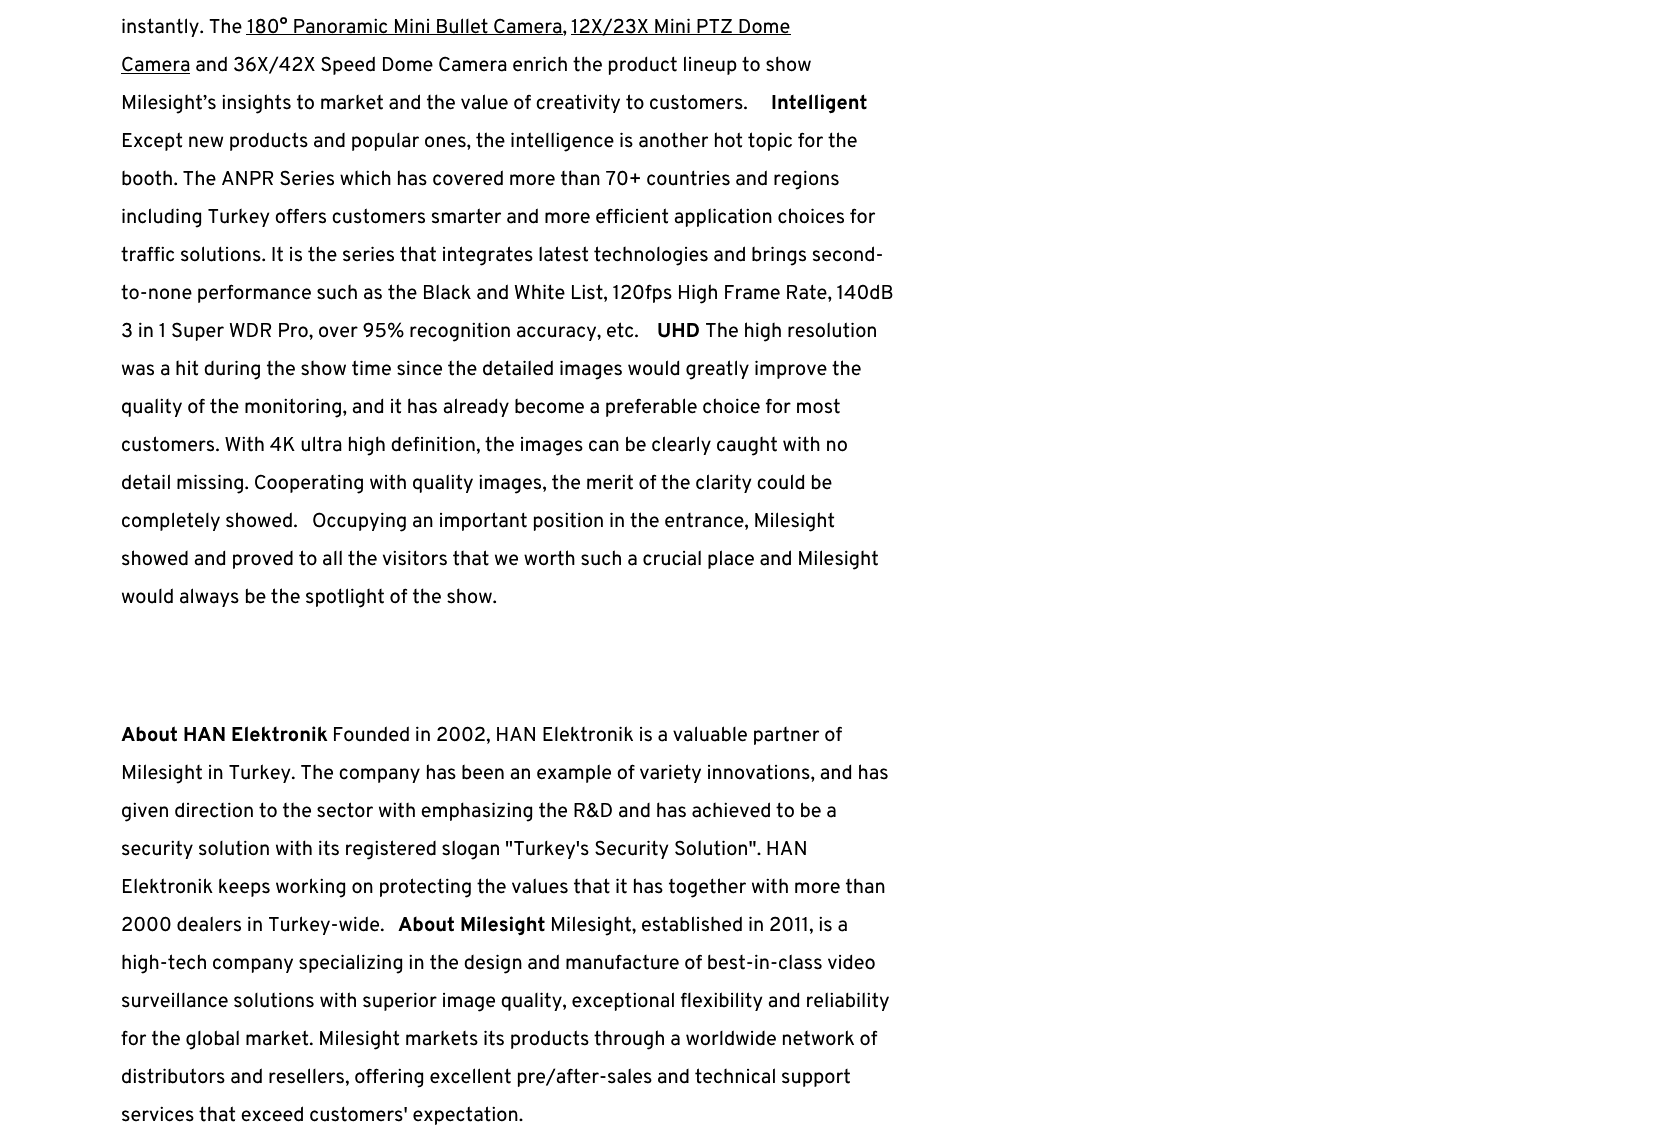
#include "include/core/SkBlurTypes.h"
#include "include/core/SkCanvas.h"
#include "include/core/SkData.h"
#include "include/core/SkFont.h"
#include "include/core/SkFontMgr.h"
#include "include/core/SkImage.h"
#include "include/core/SkMaskFilter.h"
#include "include/core/SkPaint.h"
#include "include/core/SkPathBuilder.h"
#include "include/core/SkTextBlob.h"
#include "include/effects/SkDashPathEffect.h"
#include "include/effects/SkGradientShader.h"
#include "include/utils/SkParsePath.h"

extern sk_sp<SkFontMgr> fontMgr;

void draw(SkCanvas* canvas) {
    SkPaint p;
    p.setAntiAlias(true);
    auto font = [&](const char* family, int weight, float size, bool italic = false) {
        SkFontStyle style(weight, SkFontStyle::kNormal_Width,
            italic ? SkFontStyle::kItalic_Slant : SkFontStyle::kUpright_Slant);
        SkFont result(fontMgr->matchFamilyStyle(family, style), size);
        result.setSubpixel(true);
        return result;
    };
    canvas->clear(0xFFFFFFFF);
    auto font1 = font("Overpass", 400, 20);
    p.setColor(0xFF000000);
    canvas->drawString("instantly. The 180° Panoramic Mini Bullet Camera,", 121, 33, font1, p);
    canvas->drawRect(SkRect::MakeLTRB(571, 34, 791, 35), p);
    canvas->drawString("12X/23X Mini PTZ Dome", 571, 33, font1, p);
    canvas->drawRect(SkRect::MakeLTRB(246, 34, 563, 35), p);
    canvas->drawRect(SkRect::MakeLTRB(121, 73, 190, 74), p);
    canvas->drawString("Camera and 36X/42X Speed Dome Camera enrich the product lineup to show", 121, 71, font1, p);
    canvas->drawString("Milesight’s insights to market and the value of creativity to customers.", 121, 109, font1, p);
    auto font2 = font("Overpass", 700, 20);
    canvas->drawString("Intelligent", 771, 109, font2, p);
    {
        const struct { const char* s; float x, y; } items[] = {
            {"Except new products and popular ones, the intelligence is another hot topic for the", 121, 147},
            {"booth. The ANPR Series which has covered more than 70+ countries and regions", 121, 185},
            {"including Turkey offers customers smarter and more efficient application choices for", 121, 223},
            {"traffic solutions. It is the series that integrates latest technologies and brings second-", 121, 261},
            {"to-none performance such as the Black and White List, 120fps High Frame Rate, 140dB", 121, 299},
            {"3 in 1 Super WDR Pro, over 95% recognition accuracy, etc.", 121, 337},
        };
        for (auto [s, x, y] : items) {
            canvas->drawString(s, x, y, font1, p);
        }
    }
    canvas->drawString("UHD", 657, 337, font2, p);
    {
        const struct { const char* s; float x, y; } items[] = {
            {"The high resolution", 705, 337},
            {"was a hit during the show time since the detailed images would greatly improve the", 121, 375},
            {"quality of the monitoring, and it has already become a preferable choice for most", 121, 413},
            {"customers. With 4K ultra high definition, the images can be clearly caught with no", 121, 451},
            {"detail missing. Cooperating with quality images, the merit of the clarity could be", 121, 489},
            {"completely showed.   Occupying an important position in the entrance, Milesight", 121, 527},
            {"showed and proved to all the visitors that we worth such a crucial place and Milesight", 121, 565},
            {"would always be the spotlight of the show.", 121, 603},
        };
        for (auto [s, x, y] : items) {
            canvas->drawString(s, x, y, font1, p);
        }
    }
    canvas->drawString("About HAN Elektronik", 121, 741, font2, p);
    {
        const struct { const char* s; float x, y; } items[] = {
            {"Founded in 2002, HAN Elektronik is a valuable partner of", 332, 741},
            {"Milesight in Turkey. The company has been an example of variety innovations, and has", 121, 779},
            {"given direction to the sector with emphasizing the R&D and has achieved to be a", 121, 817},
            {"security solution with its registered slogan \"Turkey's Security Solution\". HAN", 121, 855},
            {"Elektronik keeps working on protecting the values that it has together with more than", 121, 893},
            {"2000 dealers in Turkey-wide.", 121, 931},
        };
        for (auto [s, x, y] : items) {
            canvas->drawString(s, x, y, font1, p);
        }
    }
    canvas->drawString("About Milesight", 398, 931, font2, p);
    {
        const struct { const char* s; float x, y; } items[] = {
            {"Milesight, established in 2011, is a", 550, 931},
            {"high-tech company specializing in the design and manufacture of best-in-class video", 121, 969},
            {"surveillance solutions with superior image quality, exceptional flexibility and reliability", 121, 1007},
            {"for the global market. Milesight markets its products through a worldwide network of", 121, 1045},
            {"distributors and resellers, offering excellent pre/after-sales and technical support", 121, 1083},
            {"services that exceed customers' expectation.", 121, 1121},
        };
        for (auto [s, x, y] : items) {
            canvas->drawString(s, x, y, font1, p);
        }
    }
}
